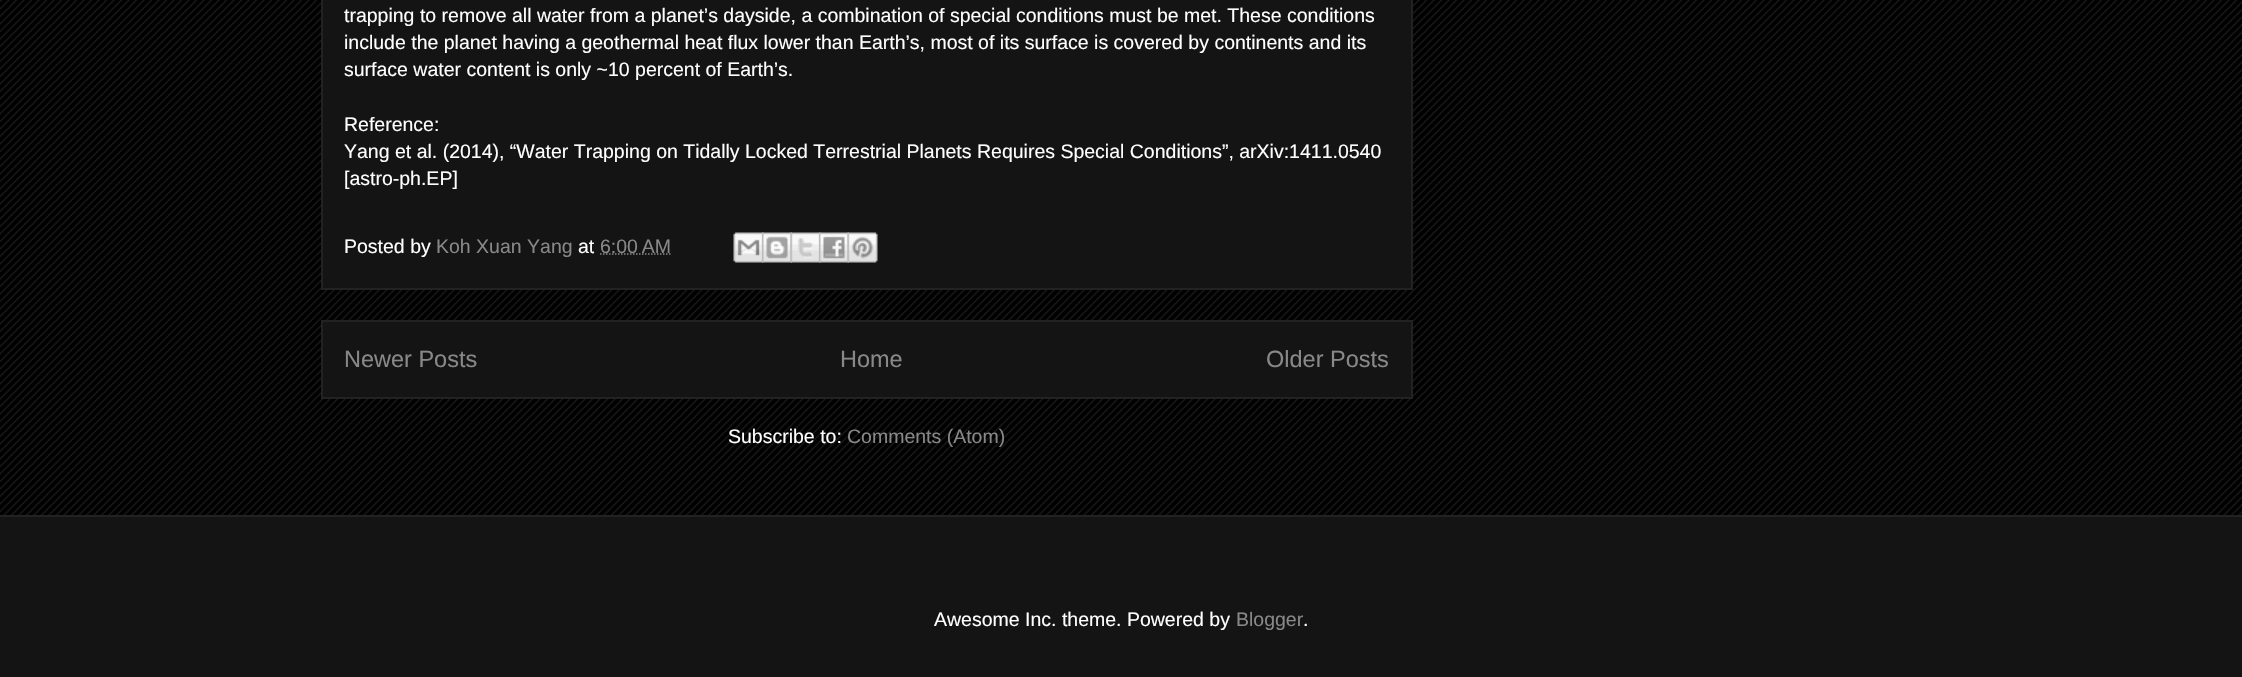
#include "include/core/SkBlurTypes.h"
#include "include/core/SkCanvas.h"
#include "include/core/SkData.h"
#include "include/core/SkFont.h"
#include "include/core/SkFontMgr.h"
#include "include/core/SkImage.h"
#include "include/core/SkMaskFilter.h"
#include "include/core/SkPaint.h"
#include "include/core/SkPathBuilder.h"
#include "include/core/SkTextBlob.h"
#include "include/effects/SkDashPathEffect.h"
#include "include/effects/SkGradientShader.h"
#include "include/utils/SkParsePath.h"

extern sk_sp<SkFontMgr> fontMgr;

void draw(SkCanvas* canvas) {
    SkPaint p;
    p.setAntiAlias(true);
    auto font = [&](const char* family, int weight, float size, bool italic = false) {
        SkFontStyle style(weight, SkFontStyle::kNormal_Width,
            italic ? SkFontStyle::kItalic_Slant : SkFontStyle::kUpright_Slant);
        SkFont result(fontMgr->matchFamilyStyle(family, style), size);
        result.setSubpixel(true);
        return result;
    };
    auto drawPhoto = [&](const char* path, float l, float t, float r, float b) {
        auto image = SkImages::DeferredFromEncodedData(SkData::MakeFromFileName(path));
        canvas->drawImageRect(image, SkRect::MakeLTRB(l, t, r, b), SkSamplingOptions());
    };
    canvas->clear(0xFF000000);
    drawPhoto("media/1.png", 0, 0, 2242, 515);
    p.setColor(0xFF141414);
    canvas->drawRect(SkRect::MakeLTRB(322, -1, 1412, 289), p);
    p.setStyle(SkPaint::kStroke_Style);
    p.setStrokeWidth(2);
    p.setColor(0xFF222222);
    canvas->drawRect(SkRect::MakeLTRB(322, -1, 1412, 289), p);
    auto font1 = font("Liberation Sans", 400, 19.5f);
    p.setStyle(SkPaint::kFill_Style);
    p.setColor(0xFFFFFFFF);
    {
        const struct { const char* s; float x, y; } items[] = {
            {"trapping to remove all water from a planet’s dayside, a combination of special conditions must be met. These conditions", 344, 22},
            {"include the planet having a geothermal heat flux lower than Earth’s, most of its surface is covered by continents and its", 344, 49},
            {"surface water content is only ~10 percent of Earth’s.", 344, 76},
            {"Reference:", 344, 131},
            {"Yang et al. (2014), “Water Trapping on Tidally Locked Terrestrial Planets Requires Special Conditions”, arXiv:1411.0540", 344, 158},
            {"[astro-ph.EP]", 344, 185},
            {"Posted by", 344, 253},
        };
        for (auto [s, x, y] : items) {
            canvas->drawString(s, x, y, font1, p);
        }
    }
    p.setColor(0xFF888888);
    canvas->drawString("Koh Xuan Yang", 436, 253, font1, p);
    p.setColor(0xFFFFFFFF);
    canvas->drawString("at", 578, 253, font1, p);
    p.setStyle(SkPaint::kStroke_Style);
    p.setStrokeWidth(1.5f);
    p.setColor(0xFF888888);
    p.setPathEffect(SkDashPathEffect::Make({{1.5f, 1.5f}}, 0));
    canvas->drawPath(SkPathBuilder().moveTo(600, 254).lineTo(671.5f, 254).detach(), p);
    p.setPathEffect(nullptr);
    p.setStyle(SkPaint::kFill_Style);
    canvas->drawString("6:00 AM", 600, 253, font1, p);
    drawPhoto("media/2.png", 733, 232, 764, 263);
    drawPhoto("media/3.png", 762, 232, 792, 263);
    drawPhoto("media/4.png", 790, 232, 821, 263);
    drawPhoto("media/5.png", 819, 232, 849, 263);
    drawPhoto("media/6.png", 847, 232, 878, 263);
    p.setColor(0xFF141414);
    canvas->drawRect(SkRect::MakeLTRB(322, 321, 1412, 398), p);
    p.setStyle(SkPaint::kStroke_Style);
    p.setStrokeWidth(2);
    p.setColor(0xFF222222);
    canvas->drawRect(SkRect::MakeLTRB(322, 321, 1412, 398), p);
    auto font2 = font("Liberation Sans", 400, 23.5f);
    p.setStyle(SkPaint::kFill_Style);
    p.setColor(0xFF888888);
    {
        const struct { const char* s; float x, y; } items[] = {
            {"Newer Posts", 344, 367},
            {"Home", 840, 367},
            {"Older Posts", 1266, 367},
        };
        for (auto [s, x, y] : items) {
            canvas->drawString(s, x, y, font2, p);
        }
    }
    p.setColor(0xFFFFFFFF);
    canvas->drawString("Subscribe to:", 728, 443, font1, p);
    p.setColor(0xFF888888);
    canvas->drawString("Comments (Atom)", 847, 443, font1, p);
    p.setColor(0xFF141414);
    canvas->drawRect(SkRect::MakeLTRB(0, 517, 2242, 677), p);
    p.setColor(0xFF222222);
    canvas->drawRect(SkRect::MakeLTRB(0, 515, 2242, 517), p);
    p.setColor(0xFFFFFFFF);
    canvas->drawString("Awesome Inc. theme. Powered by", 934, 626, font1, p);
    p.setColor(0xFF888888);
    canvas->drawString("Blogger", 1236, 626, font1, p);
    p.setColor(0xFFFFFFFF);
    canvas->drawString(".", 1303, 626, font1, p);
}
